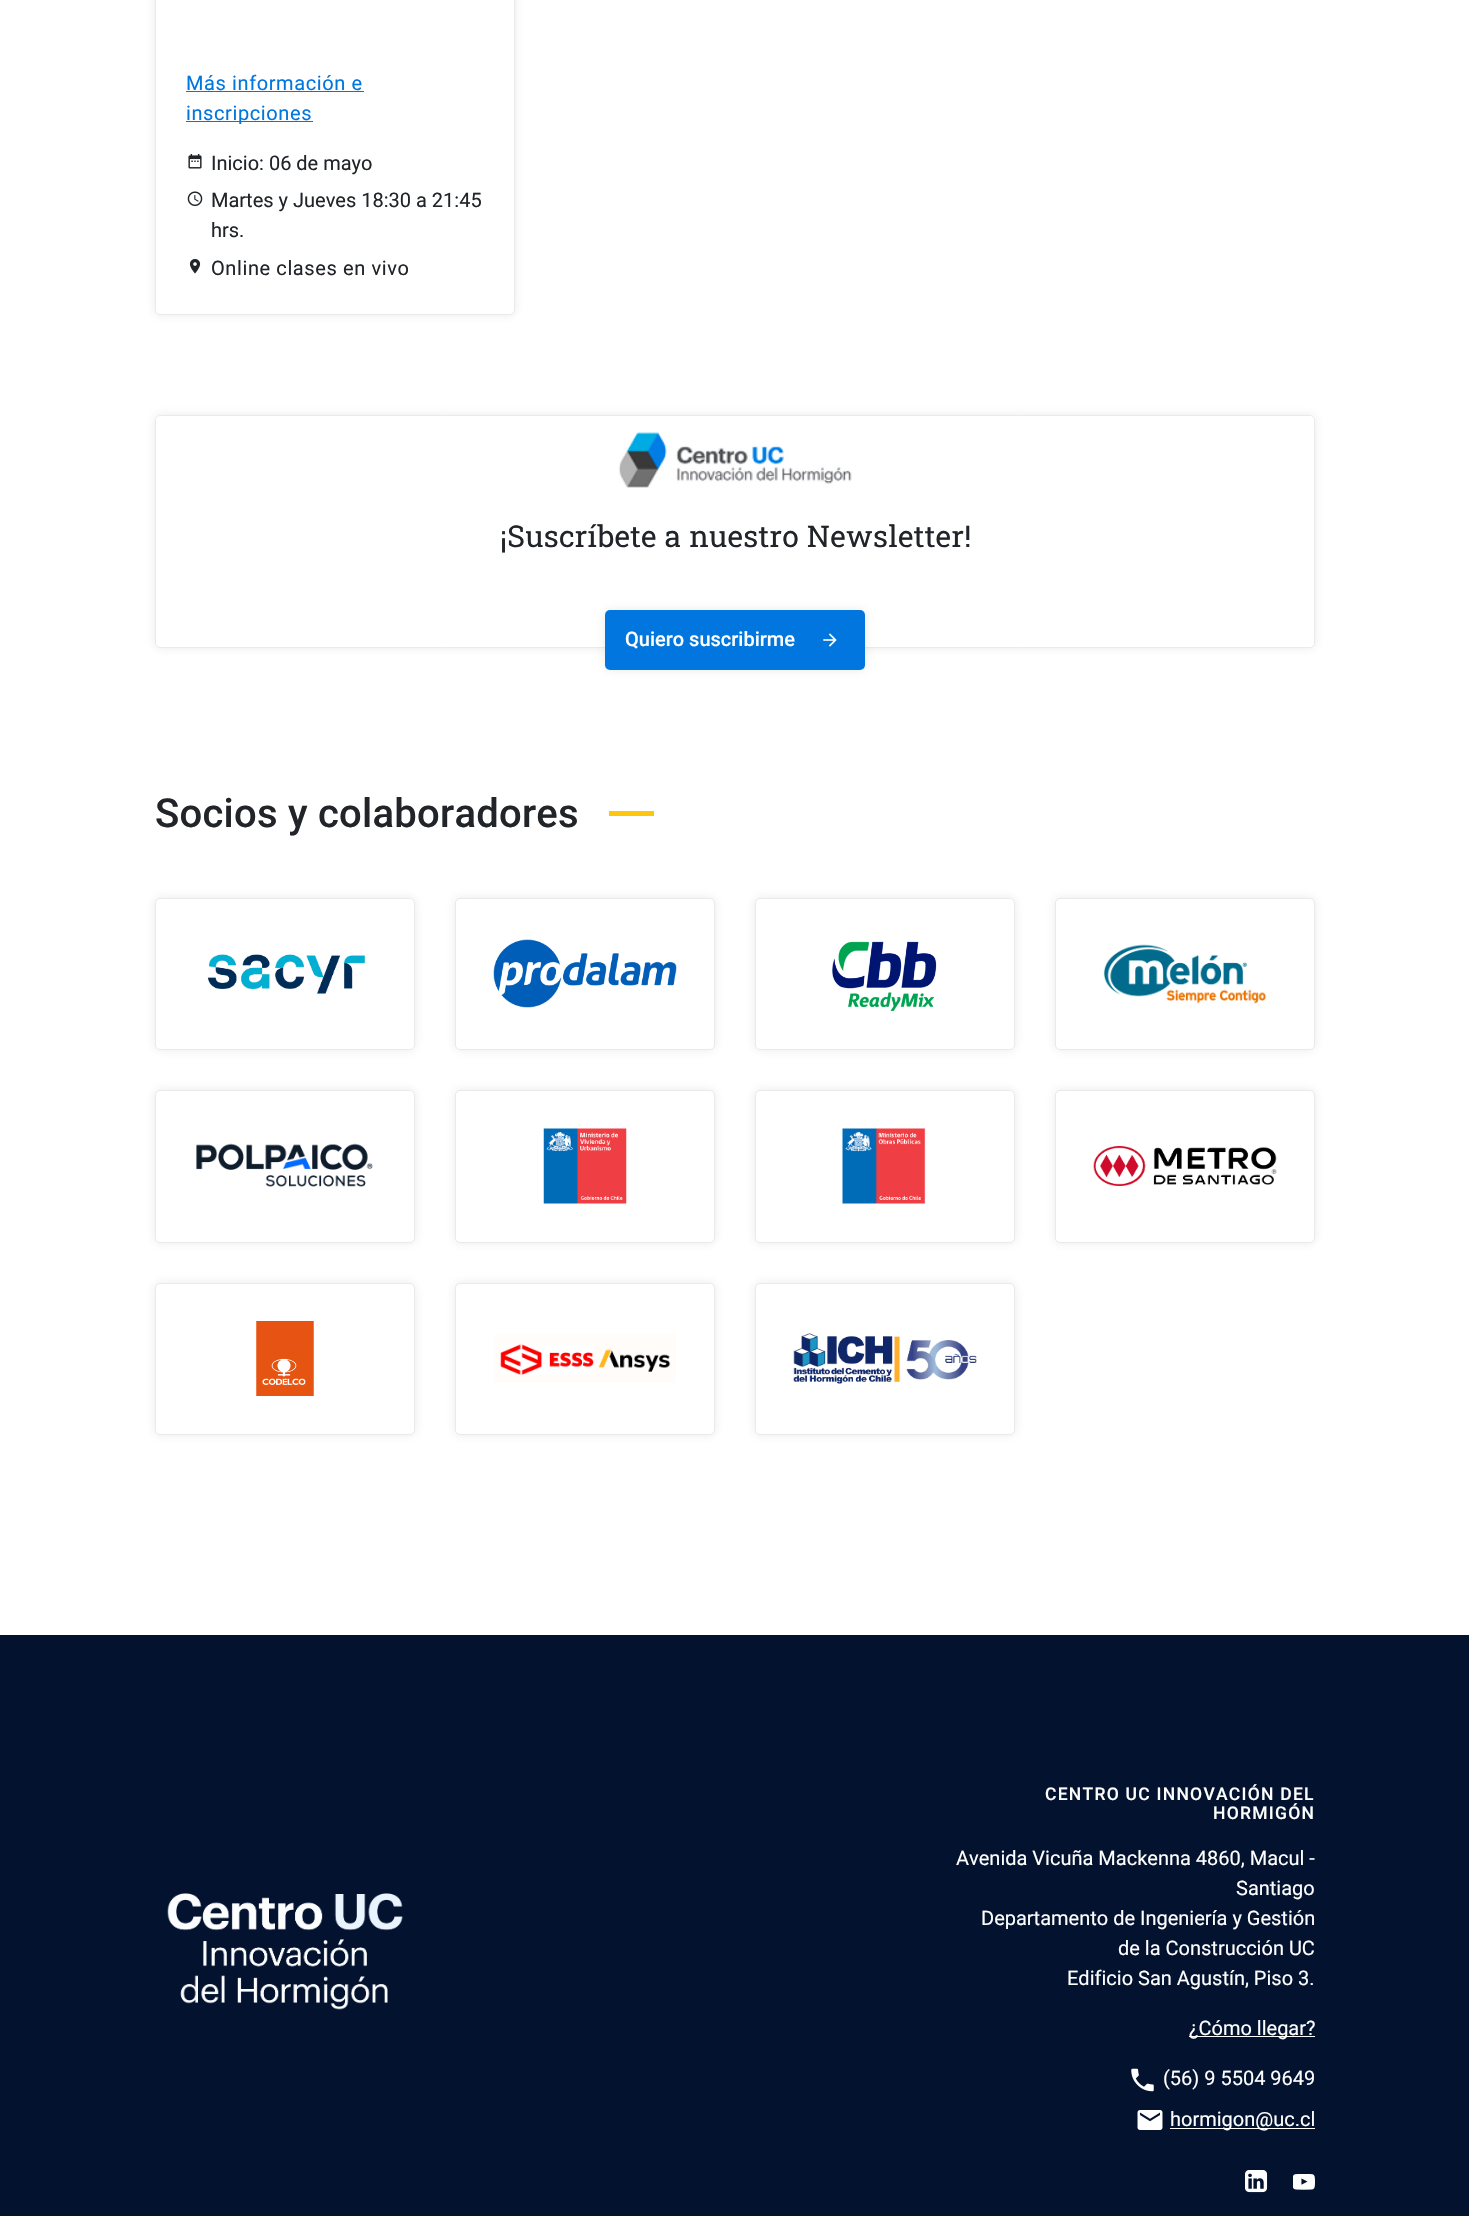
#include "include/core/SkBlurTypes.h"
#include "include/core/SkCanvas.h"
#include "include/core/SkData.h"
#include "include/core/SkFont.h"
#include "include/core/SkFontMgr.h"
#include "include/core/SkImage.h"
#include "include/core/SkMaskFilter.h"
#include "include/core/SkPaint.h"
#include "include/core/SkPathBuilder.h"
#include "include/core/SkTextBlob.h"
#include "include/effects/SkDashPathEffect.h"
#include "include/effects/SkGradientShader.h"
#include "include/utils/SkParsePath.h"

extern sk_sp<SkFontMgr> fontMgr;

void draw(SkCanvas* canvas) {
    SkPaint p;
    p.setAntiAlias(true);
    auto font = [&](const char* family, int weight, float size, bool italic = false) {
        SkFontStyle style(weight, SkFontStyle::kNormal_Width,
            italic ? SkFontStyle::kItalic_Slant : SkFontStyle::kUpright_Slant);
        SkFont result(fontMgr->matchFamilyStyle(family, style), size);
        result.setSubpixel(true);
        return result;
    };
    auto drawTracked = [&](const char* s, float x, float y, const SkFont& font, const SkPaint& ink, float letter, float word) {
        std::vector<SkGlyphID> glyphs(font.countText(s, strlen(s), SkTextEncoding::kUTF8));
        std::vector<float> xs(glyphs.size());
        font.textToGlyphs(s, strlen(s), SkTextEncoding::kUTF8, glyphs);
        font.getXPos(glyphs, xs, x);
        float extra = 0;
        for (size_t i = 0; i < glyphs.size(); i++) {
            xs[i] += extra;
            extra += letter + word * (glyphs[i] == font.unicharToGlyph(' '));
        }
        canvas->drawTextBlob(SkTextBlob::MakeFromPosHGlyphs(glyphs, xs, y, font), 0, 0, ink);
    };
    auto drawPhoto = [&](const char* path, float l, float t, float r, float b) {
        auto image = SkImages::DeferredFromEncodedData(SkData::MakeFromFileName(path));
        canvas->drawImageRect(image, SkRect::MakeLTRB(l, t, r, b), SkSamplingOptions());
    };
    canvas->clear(0xFFFFFFFF);
    p.setColor(0x2E888888);
    p.setMaskFilter(SkMaskFilter::MakeBlur(kNormal_SkBlurStyle, 5));
    canvas->drawRoundRect(SkRect::MakeLTRB(155, -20, 515, 315), 5, 5, p);
    p.setMaskFilter(nullptr);
    p.setColor(0xFFFFFFFF);
    canvas->drawRoundRect(SkRect::MakeLTRB(155.5f, -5.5f, 514.5f, 314.5f), 4.5f, 4.5f, p);
    p.setStyle(SkPaint::kStroke_Style);
    p.setStrokeWidth(1);
    p.setColor(0xFFEAEAEA);
    canvas->drawRoundRect(SkRect::MakeLTRB(155.5f, -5.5f, 514.5f, 314.5f), 4.5f, 4.5f, p);
    auto font1 = font("Roboto", 400, 20);
    p.setStyle(SkPaint::kFill_Style);
    p.setColor(0xFF0176DE);
    drawTracked("Más información e", 186, 90, font1, p, 0.6f, 0);
    canvas->drawRect(SkRect::MakeLTRB(186, 91, 364, 92), p);
    canvas->drawRect(SkRect::MakeLTRB(186, 121, 313, 122), p);
    drawTracked("inscripciones", 186, 120, font1, p, 0.6f, 0);
    drawPhoto("media/1.png", 188, 154, 202, 169);
    p.setColor(0xFF212529);
    canvas->drawString("Inicio: 06 de mayo", 211, 170, font1, p);
    drawPhoto("media/2.png", 187, 191, 203, 206);
    canvas->drawString("Martes y Jueves 18:30 a 21:45", 211, 207, font1, p);
    canvas->drawString("hrs.", 211, 237, font1, p);
    drawPhoto("media/3.png", 189, 259, 201, 274);
    drawTracked("Online clases en vivo", 211, 275, font1, p, 0.6f, 0);
    p.setColor(0x2E888888);
    p.setMaskFilter(SkMaskFilter::MakeBlur(kNormal_SkBlurStyle, 5));
    canvas->drawRoundRect(SkRect::MakeLTRB(155, 415, 1315, 648), 5, 5, p);
    p.setMaskFilter(nullptr);
    drawPhoto("media/4.png", 155, 415, 1315, 648);
    p.setStyle(SkPaint::kStroke_Style);
    p.setColor(0xFFEAEAEA);
    canvas->drawRoundRect(SkRect::MakeLTRB(155.5f, 415.5f, 1314.5f, 647.5f), 4.5f, 4.5f, p);
    auto font2 = font("Roboto Slab", 400, 30);
    p.setStyle(SkPaint::kFill_Style);
    p.setColor(0xFF212529);
    drawTracked("¡Suscríbete a nuestro Newsletter!", 500, 547, font2, p, 0.25f, 0);
    p.setColor(0x2E888888);
    p.setMaskFilter(SkMaskFilter::MakeBlur(kNormal_SkBlurStyle, 5));
    canvas->drawRoundRect(SkRect::MakeLTRB(605, 610, 865, 670), 5, 5, p);
    p.setMaskFilter(nullptr);
    p.setColor(0xFF0176DE);
    canvas->drawRoundRect(SkRect::MakeLTRB(605, 610, 865, 670), 5, 5, p);
    auto font3 = font("Roboto", 500, 20);
    p.setColor(0xFFFFFFFF);
    canvas->drawString("Quiero suscribirme", 625, 646, font3, p);
    drawPhoto("media/5.png", 823, 633, 837, 647);
    auto font4 = font("Roboto", 500, 40);
    p.setColor(0xFF212529);
    drawTracked("Socios y colaboradores", 155, 827, font4, p, 0.25f, 0);
    p.setColor(0xFFFEC60D);
    canvas->drawRect(SkRect::MakeLTRB(609, 811, 654, 816), p);
    p.setColor(0x2E888888);
    p.setMaskFilter(SkMaskFilter::MakeBlur(kNormal_SkBlurStyle, 5));
    canvas->drawRoundRect(SkRect::MakeLTRB(155, 898, 415, 1050), 5, 5, p);
    p.setMaskFilter(nullptr);
    p.setColor(0xFFFFFFFF);
    canvas->drawRoundRect(SkRect::MakeLTRB(155.5f, 898.5f, 414.5f, 1049.5f), 4.5f, 4.5f, p);
    p.setStyle(SkPaint::kStroke_Style);
    p.setColor(0xFFEAEAEA);
    canvas->drawRoundRect(SkRect::MakeLTRB(155.5f, 898.5f, 414.5f, 1049.5f), 4.5f, 4.5f, p);
    drawPhoto("media/6.png", 207, 954, 366, 994);
    p.setStyle(SkPaint::kFill_Style);
    p.setColor(0x2E888888);
    p.setMaskFilter(SkMaskFilter::MakeBlur(kNormal_SkBlurStyle, 5));
    canvas->drawRoundRect(SkRect::MakeLTRB(455, 898, 715, 1050), 5, 5, p);
    p.setMaskFilter(nullptr);
    p.setColor(0xFFFFFFFF);
    canvas->drawRoundRect(SkRect::MakeLTRB(455.5f, 898.5f, 714.5f, 1049.5f), 4.5f, 4.5f, p);
    p.setStyle(SkPaint::kStroke_Style);
    p.setColor(0xFFEAEAEA);
    canvas->drawRoundRect(SkRect::MakeLTRB(455.5f, 898.5f, 714.5f, 1049.5f), 4.5f, 4.5f, p);
    drawPhoto("media/7.png", 493, 939, 677, 1008);
    p.setStyle(SkPaint::kFill_Style);
    p.setColor(0x2E888888);
    p.setMaskFilter(SkMaskFilter::MakeBlur(kNormal_SkBlurStyle, 5));
    canvas->drawRoundRect(SkRect::MakeLTRB(755, 898, 1015, 1050), 5, 5, p);
    p.setMaskFilter(nullptr);
    p.setColor(0xFFFFFFFF);
    canvas->drawRoundRect(SkRect::MakeLTRB(755.5f, 898.5f, 1014.5f, 1049.5f), 4.5f, 4.5f, p);
    p.setStyle(SkPaint::kStroke_Style);
    p.setColor(0xFFEAEAEA);
    canvas->drawRoundRect(SkRect::MakeLTRB(755.5f, 898.5f, 1014.5f, 1049.5f), 4.5f, 4.5f, p);
    drawPhoto("media/8.png", 832, 941, 937, 1011);
    p.setStyle(SkPaint::kFill_Style);
    p.setColor(0x2E888888);
    p.setMaskFilter(SkMaskFilter::MakeBlur(kNormal_SkBlurStyle, 5));
    canvas->drawRoundRect(SkRect::MakeLTRB(1055, 898, 1315, 1050), 5, 5, p);
    p.setMaskFilter(nullptr);
    p.setColor(0xFFFFFFFF);
    canvas->drawRoundRect(SkRect::MakeLTRB(1055.5f, 898.5f, 1314.5f, 1049.5f), 4.5f, 4.5f, p);
    p.setStyle(SkPaint::kStroke_Style);
    p.setColor(0xFFEAEAEA);
    canvas->drawRoundRect(SkRect::MakeLTRB(1055.5f, 898.5f, 1314.5f, 1049.5f), 4.5f, 4.5f, p);
    drawPhoto("media/9.png", 1103, 944, 1267, 1004);
    p.setStyle(SkPaint::kFill_Style);
    p.setColor(0x2E888888);
    p.setMaskFilter(SkMaskFilter::MakeBlur(kNormal_SkBlurStyle, 5));
    canvas->drawRoundRect(SkRect::MakeLTRB(155, 1090, 415, 1243), 5, 5, p);
    p.setMaskFilter(nullptr);
    p.setColor(0xFFFFFFFF);
    canvas->drawRoundRect(SkRect::MakeLTRB(155.5f, 1090.5f, 414.5f, 1242.5f), 4.5f, 4.5f, p);
    p.setStyle(SkPaint::kStroke_Style);
    p.setColor(0xFFEAEAEA);
    canvas->drawRoundRect(SkRect::MakeLTRB(155.5f, 1090.5f, 414.5f, 1242.5f), 4.5f, 4.5f, p);
    drawPhoto("media/10.png", 196, 1143, 373, 1187);
    p.setStyle(SkPaint::kFill_Style);
    p.setColor(0x2E888888);
    p.setMaskFilter(SkMaskFilter::MakeBlur(kNormal_SkBlurStyle, 5));
    canvas->drawRoundRect(SkRect::MakeLTRB(455, 1090, 715, 1243), 5, 5, p);
    p.setMaskFilter(nullptr);
    p.setColor(0xFFFFFFFF);
    canvas->drawRoundRect(SkRect::MakeLTRB(455.5f, 1090.5f, 714.5f, 1242.5f), 4.5f, 4.5f, p);
    p.setStyle(SkPaint::kStroke_Style);
    p.setColor(0xFFEAEAEA);
    canvas->drawRoundRect(SkRect::MakeLTRB(455.5f, 1090.5f, 714.5f, 1242.5f), 4.5f, 4.5f, p);
    drawPhoto("media/11.png", 543, 1128, 627, 1204);
    p.setStyle(SkPaint::kFill_Style);
    p.setColor(0x2E888888);
    p.setMaskFilter(SkMaskFilter::MakeBlur(kNormal_SkBlurStyle, 5));
    canvas->drawRoundRect(SkRect::MakeLTRB(755, 1090, 1015, 1243), 5, 5, p);
    p.setMaskFilter(nullptr);
    p.setColor(0xFFFFFFFF);
    canvas->drawRoundRect(SkRect::MakeLTRB(755.5f, 1090.5f, 1014.5f, 1242.5f), 4.5f, 4.5f, p);
    p.setStyle(SkPaint::kStroke_Style);
    p.setColor(0xFFEAEAEA);
    canvas->drawRoundRect(SkRect::MakeLTRB(755.5f, 1090.5f, 1014.5f, 1242.5f), 4.5f, 4.5f, p);
    drawPhoto("media/12.png", 842, 1128, 926, 1204);
    p.setStyle(SkPaint::kFill_Style);
    p.setColor(0x2E888888);
    p.setMaskFilter(SkMaskFilter::MakeBlur(kNormal_SkBlurStyle, 5));
    canvas->drawRoundRect(SkRect::MakeLTRB(1055, 1090, 1315, 1243), 5, 5, p);
    p.setMaskFilter(nullptr);
    p.setColor(0xFFFFFFFF);
    canvas->drawRoundRect(SkRect::MakeLTRB(1055.5f, 1090.5f, 1314.5f, 1242.5f), 4.5f, 4.5f, p);
    p.setStyle(SkPaint::kStroke_Style);
    p.setColor(0xFFEAEAEA);
    canvas->drawRoundRect(SkRect::MakeLTRB(1055.5f, 1090.5f, 1314.5f, 1242.5f), 4.5f, 4.5f, p);
    drawPhoto("media/13.png", 1093, 1146, 1277, 1186);
    p.setStyle(SkPaint::kFill_Style);
    p.setColor(0x2E888888);
    p.setMaskFilter(SkMaskFilter::MakeBlur(kNormal_SkBlurStyle, 5));
    canvas->drawRoundRect(SkRect::MakeLTRB(155, 1283, 415, 1435), 5, 5, p);
    p.setMaskFilter(nullptr);
    p.setColor(0xFFFFFFFF);
    canvas->drawRoundRect(SkRect::MakeLTRB(155.5f, 1283.5f, 414.5f, 1434.5f), 4.5f, 4.5f, p);
    p.setStyle(SkPaint::kStroke_Style);
    p.setColor(0xFFEAEAEA);
    canvas->drawRoundRect(SkRect::MakeLTRB(155.5f, 1283.5f, 414.5f, 1434.5f), 4.5f, 4.5f, p);
    drawPhoto("media/14.png", 256, 1321, 314, 1396);
    p.setStyle(SkPaint::kFill_Style);
    p.setColor(0x2E888888);
    p.setMaskFilter(SkMaskFilter::MakeBlur(kNormal_SkBlurStyle, 5));
    canvas->drawRoundRect(SkRect::MakeLTRB(455, 1283, 715, 1435), 5, 5, p);
    p.setMaskFilter(nullptr);
    p.setColor(0xFFFFFFFF);
    canvas->drawRoundRect(SkRect::MakeLTRB(455.5f, 1283.5f, 714.5f, 1434.5f), 4.5f, 4.5f, p);
    p.setStyle(SkPaint::kStroke_Style);
    p.setColor(0xFFEAEAEA);
    canvas->drawRoundRect(SkRect::MakeLTRB(455.5f, 1283.5f, 714.5f, 1434.5f), 4.5f, 4.5f, p);
    drawPhoto("media/15.png", 494, 1334, 676, 1383);
    p.setStyle(SkPaint::kFill_Style);
    p.setColor(0x2E888888);
    p.setMaskFilter(SkMaskFilter::MakeBlur(kNormal_SkBlurStyle, 5));
    canvas->drawRoundRect(SkRect::MakeLTRB(755, 1283, 1015, 1435), 5, 5, p);
    p.setMaskFilter(nullptr);
    p.setColor(0xFFFFFFFF);
    canvas->drawRoundRect(SkRect::MakeLTRB(755.5f, 1283.5f, 1014.5f, 1434.5f), 4.5f, 4.5f, p);
    p.setStyle(SkPaint::kStroke_Style);
    p.setColor(0xFFEAEAEA);
    canvas->drawRoundRect(SkRect::MakeLTRB(755.5f, 1283.5f, 1014.5f, 1434.5f), 4.5f, 4.5f, p);
    drawPhoto("media/16.png", 793, 1333, 977, 1384);
    p.setStyle(SkPaint::kFill_Style);
    p.setColor(0xFF03122E);
    canvas->drawRect(SkRect::MakeLTRB(0, 1635, 1469, 2216), p);
    drawPhoto("media/17.png", 167, 1893, 403, 2010);
    auto font5 = font("Roboto", 500, 17.5f);
    p.setColor(0xFFFFFFFF);
    drawTracked("CENTRO UC INNOVACIÓN DEL", 1045, 1800, font5, p, 1.25f, 0);
    drawTracked("HORMIGÓN", 1213, 1819, font5, p, 1.25f, 0);
    {
        const struct { const char* s; float x, y; } items[] = {
            {"Avenida Vicuña Mackenna 4860, Macul -", 956, 1865},
            {"Santiago", 1236, 1895},
            {"Departamento de Ingeniería y Gestión", 981, 1925},
            {"de la Construcción UC", 1118, 1955},
            {"Edificio San Agustín, Piso 3.", 1067, 1985},
        };
        for (auto [s, x, y] : items) {
            canvas->drawString(s, x, y, font1, p);
        }
    }
    canvas->drawRect(SkRect::MakeLTRB(1189, 2036, 1315, 2037), p);
    canvas->drawString("¿Cómo llegar?", 1189, 2035, font1, p);
    drawPhoto("media/18.png", 1131, 2068, 1154, 2092);
    canvas->drawString("(56) 9 5504 9649", 1163, 2085, font1, p);
    drawPhoto("media/19.png", 1137, 2110, 1163, 2130);
    canvas->drawRect(SkRect::MakeLTRB(1170, 2128, 1315, 2129), p);
    canvas->drawString("hormigon@uc.cl", 1170, 2126, font1, p);
    drawPhoto("media/20.png", 1245, 2170, 1268, 2193);
    drawPhoto("media/21.png", 1293, 2174, 1315, 2190);
}
